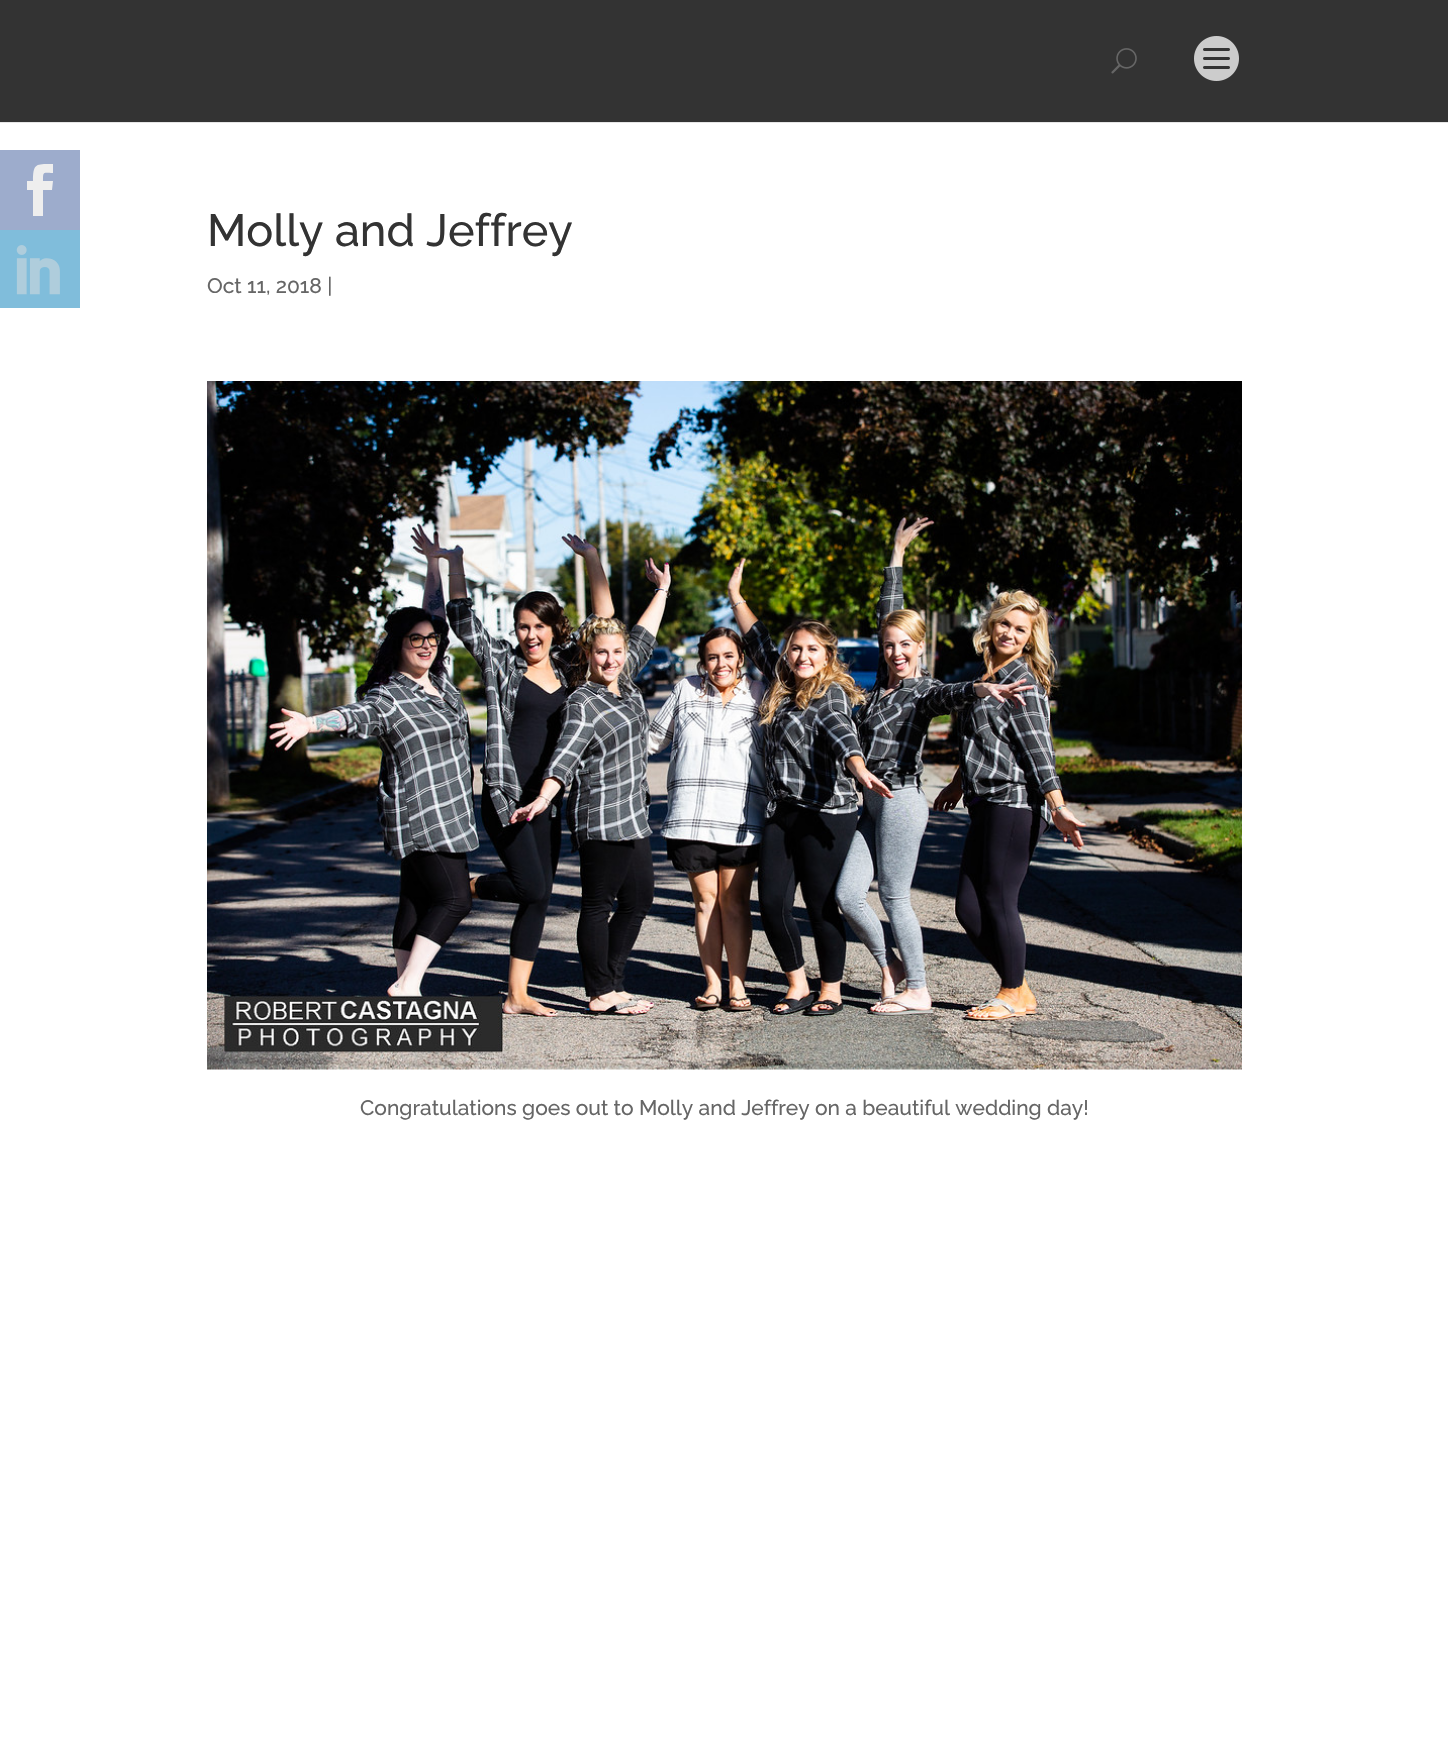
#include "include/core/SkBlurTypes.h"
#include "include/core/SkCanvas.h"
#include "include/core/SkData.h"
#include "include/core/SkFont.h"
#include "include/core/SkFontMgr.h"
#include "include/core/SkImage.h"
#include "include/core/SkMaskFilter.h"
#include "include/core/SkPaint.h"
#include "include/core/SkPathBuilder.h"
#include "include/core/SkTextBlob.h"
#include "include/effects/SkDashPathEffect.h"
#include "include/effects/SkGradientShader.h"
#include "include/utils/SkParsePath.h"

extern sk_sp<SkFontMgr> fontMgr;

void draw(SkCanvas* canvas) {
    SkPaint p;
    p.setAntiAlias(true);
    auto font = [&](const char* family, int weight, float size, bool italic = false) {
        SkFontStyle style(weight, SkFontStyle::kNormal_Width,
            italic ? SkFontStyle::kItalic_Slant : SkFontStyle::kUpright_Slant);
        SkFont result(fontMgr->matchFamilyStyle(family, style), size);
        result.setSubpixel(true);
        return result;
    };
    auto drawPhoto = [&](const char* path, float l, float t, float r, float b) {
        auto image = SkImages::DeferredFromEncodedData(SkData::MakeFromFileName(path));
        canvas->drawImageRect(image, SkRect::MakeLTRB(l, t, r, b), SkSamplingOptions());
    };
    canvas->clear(0xFF333333);
    p.setColor(0xFFE6E6E6);
    canvas->drawRect(SkRect::MakeLTRB(0, 122, 1448, 123), p);
    drawPhoto("media/1.png", 1111, 48, 1137, 74);
    drawPhoto("media/2.png", 1194, 36, 1239, 81);
    p.setColor(0xFFFFFFFF);
    canvas->drawRect(SkRect::MakeLTRB(0, 123, 1448, 1737), p);
    p.setColor(0xFF9DACCC);
    canvas->drawRect(SkRect::MakeLTRB(0, 150, 80, 230), p);
    p.setColor(0xFFEEEEEE);
    canvas->drawPath(SkPathBuilder().moveTo(33, 216).lineTo(43, 216).lineTo(43, 190).lineTo(52, 190).lineTo(53, 181).lineTo(43, 181).cubicTo(43, 171, 43, 173, 53, 173).lineTo(53, 164).cubicTo(36, 164, 33, 163, 33, 181).lineTo(27, 181).lineTo(27, 190).lineTo(33, 190).close().detach(), p);
    p.setColor(0xFF80BDDB);
    canvas->drawRect(SkRect::MakeLTRB(0, 230, 80, 308), p);
    drawPhoto("media/3.png", 16, 245, 60, 295);
    auto font1 = font("Raleway", 500, 45);
    p.setColor(0xFF333333);
    canvas->drawString("Molly and Jeffrey", 207, 246, font1, p);
    auto font2 = font("Raleway", 500, 21);
    p.setColor(0xFF666666);
    canvas->drawString("Oct 11, 2018 |", 207, 293, font2, p);
    drawPhoto("media/4.png", 207, 381, 1242, 1070);
    canvas->drawString("Congratulations goes out to Molly and Jeffrey on a beautiful wedding day!", 360, 1115, font2, p);
}
